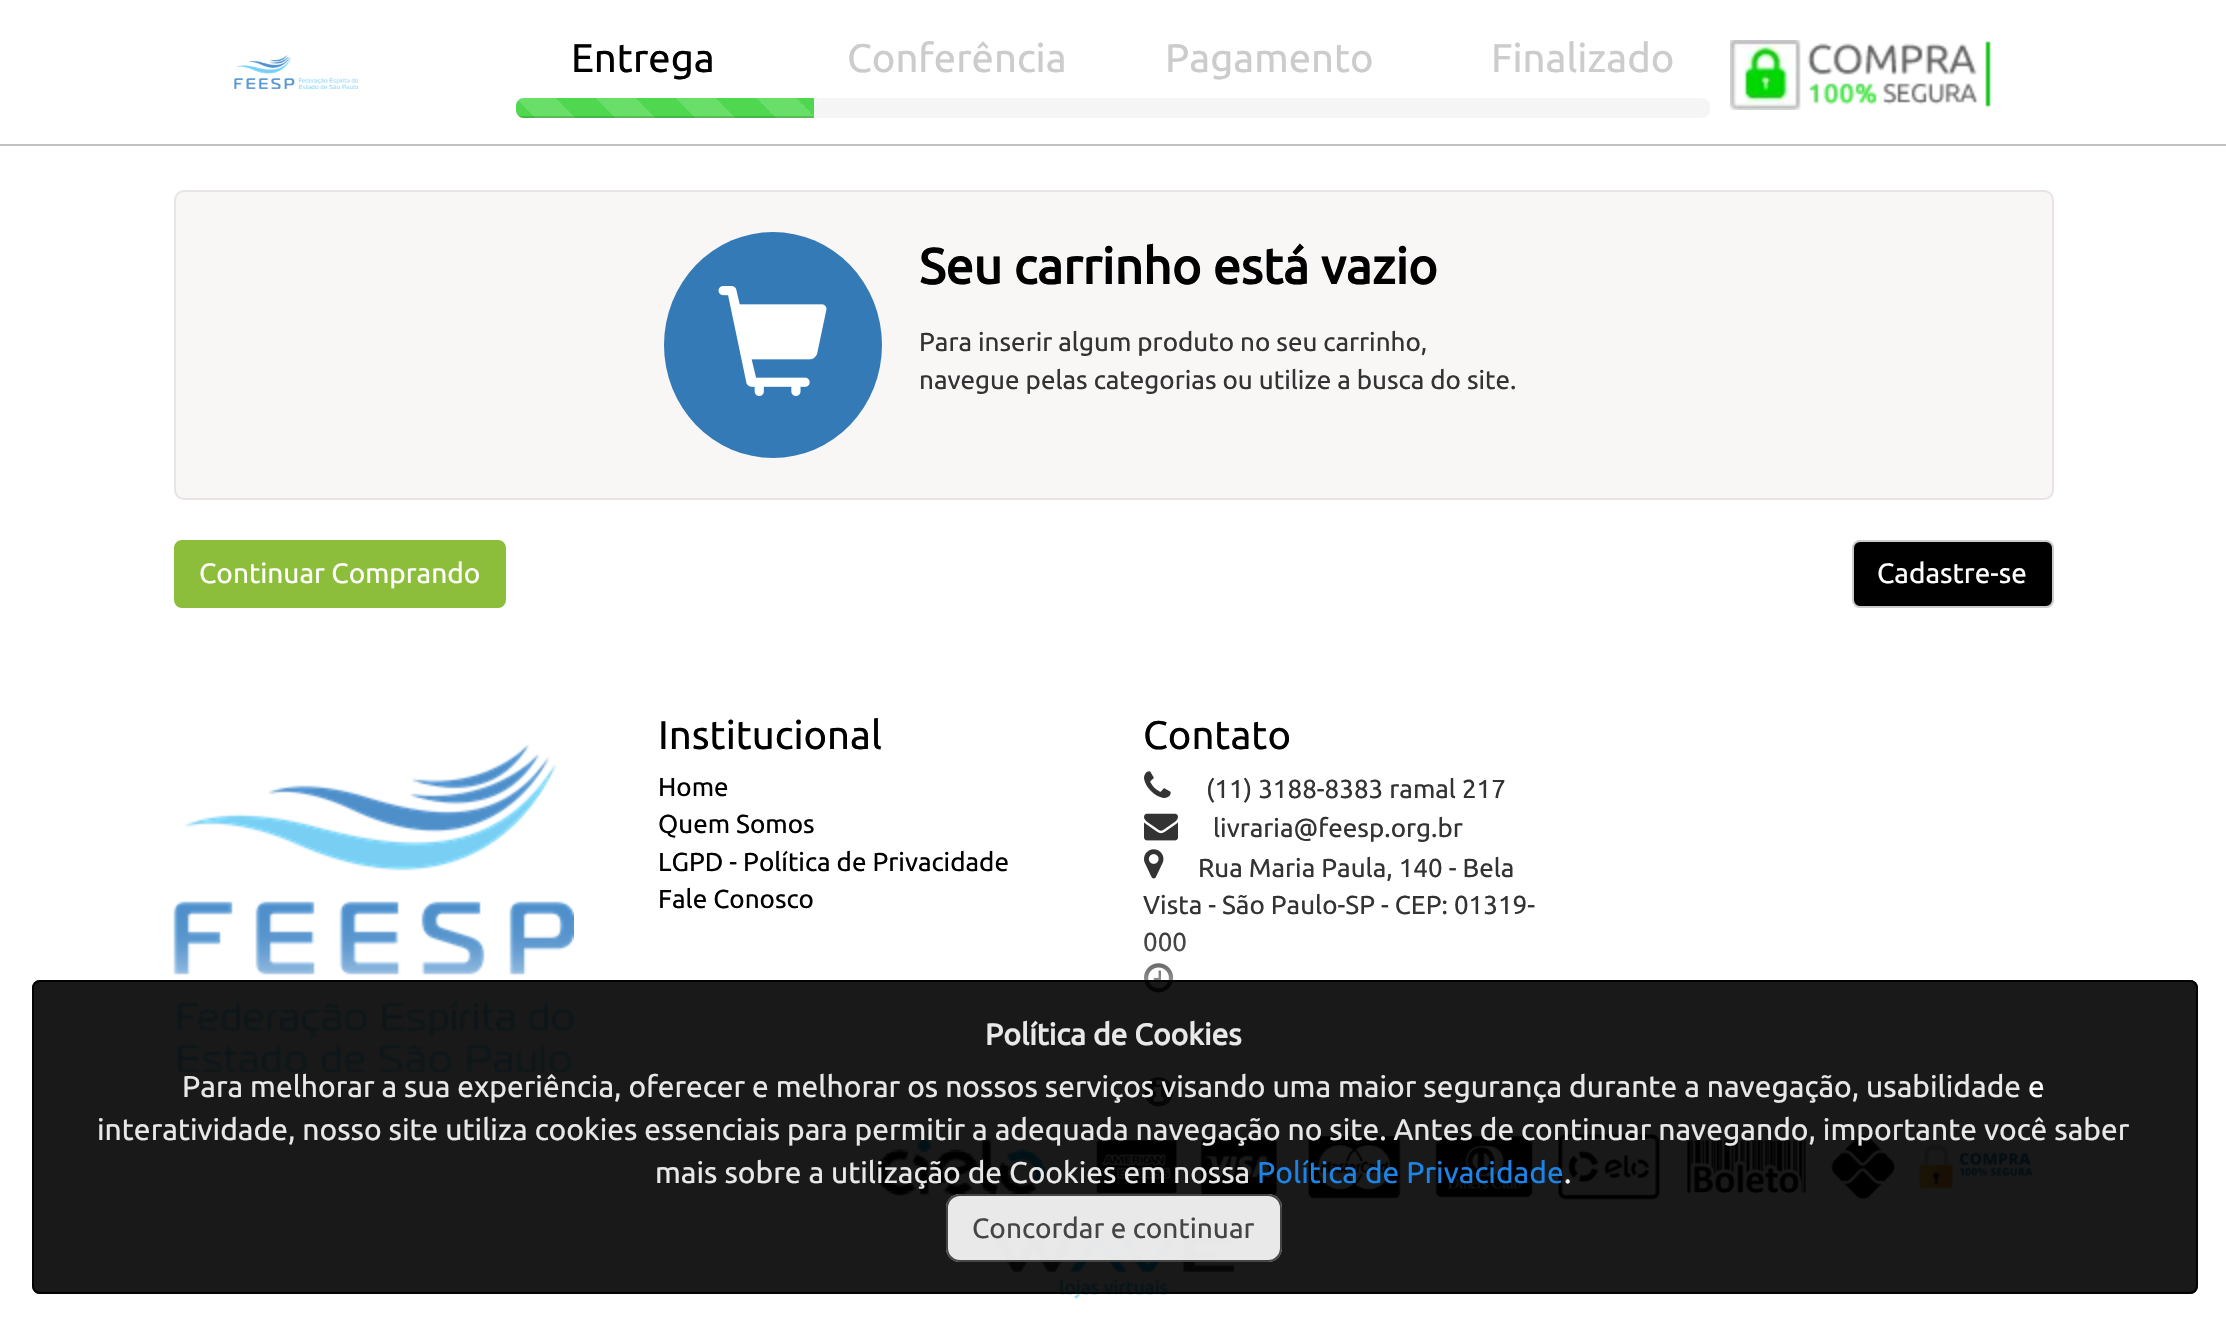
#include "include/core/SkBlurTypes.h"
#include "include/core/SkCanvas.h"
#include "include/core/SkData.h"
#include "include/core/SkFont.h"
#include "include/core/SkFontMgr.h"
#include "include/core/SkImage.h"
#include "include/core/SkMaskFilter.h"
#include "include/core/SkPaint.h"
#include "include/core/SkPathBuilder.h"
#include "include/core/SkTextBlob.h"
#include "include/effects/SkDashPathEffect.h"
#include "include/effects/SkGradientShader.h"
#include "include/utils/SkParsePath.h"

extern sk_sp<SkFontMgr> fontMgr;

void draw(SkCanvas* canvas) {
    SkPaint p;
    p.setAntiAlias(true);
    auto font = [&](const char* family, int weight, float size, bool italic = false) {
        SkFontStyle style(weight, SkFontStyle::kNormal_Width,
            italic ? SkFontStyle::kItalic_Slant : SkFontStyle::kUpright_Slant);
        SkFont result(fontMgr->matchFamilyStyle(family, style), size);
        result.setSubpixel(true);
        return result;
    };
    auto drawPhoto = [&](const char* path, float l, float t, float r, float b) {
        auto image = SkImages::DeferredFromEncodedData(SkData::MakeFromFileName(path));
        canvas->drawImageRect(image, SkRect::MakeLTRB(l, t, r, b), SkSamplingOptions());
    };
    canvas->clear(0xFFFFFFFF);
    p.setColor(0xFFC1C1C1);
    canvas->drawRect(SkRect::MakeLTRB(0, 144, 2226, 146), p);
    drawPhoto("media/1.png", 234, 55, 358, 89);
    auto font1 = font("Ubuntu", 400, 40);
    p.setColor(0xFF000000);
    canvas->drawString("Entrega", 571, 72, font1, p);
    p.setColor(0xFFCCCCCC);
    {
        const struct { const char* s; float x, y; } items[] = {
            {"Conferência", 847, 72},
            {"Pagamento", 1165, 72},
            {"Finalizado", 1491, 72},
        };
        for (auto [s, x, y] : items) {
            canvas->drawString(s, x, y, font1, p);
        }
    }
    p.setColor(0xFFF5F5F5);
    canvas->drawRoundRect(SkRect::MakeLTRB(516, 98, 1710, 118), 8, 8, p);
    p.setColor(0xFF4FD84F);
    canvas->drawPath(SkPathBuilder().moveTo(524, 98).lineTo(814, 98).lineTo(814, 118).lineTo(524, 118).cubicTo(519.5f, 118, 516, 114.5f, 516, 110).lineTo(516, 106).cubicTo(516, 101.5f, 519.5f, 98, 524, 98).close().detach(), p);
    {
        const SkColor colors[] = {0x26FFFFFF, 0x00FFFFFF, 0x00FFFFFF, 0x26FFFFFF, 0x26FFFFFF, 0x00FFFFFF, 0x00000000};
        const float stops[] = {0.25f, 0.25f, 0.5f, 0.5f, 0.75f, 0.75f, 1};
        const SkPoint ends[] = {{516, 178}, {596, 98}};
        p.setShader(SkGradientShader::MakeLinear(ends, colors, stops, 7, SkTileMode::kClamp));
        p.setAlpha(255);
    }
    canvas->drawPath(SkPathBuilder().moveTo(524, 98).lineTo(596, 98).lineTo(596, 118).lineTo(524, 118).cubicTo(519.5f, 118, 516, 114.5f, 516, 110).lineTo(516, 106).cubicTo(516, 101.5f, 519.5f, 98, 524, 98).close().detach(), p);
    {
        const SkColor colors[] = {0xFF69DE69, 0xFF4FD84F, 0xFF4FD84F, 0xFF69DE69, 0xFF69DE69, 0xFF4FD84F, 0xFF4FD84F};
        const float stops[] = {0.25f, 0.25f, 0.5f, 0.5f, 0.75f, 0.75f, 1};
        const SkPoint ends[] = {{596, 178}, {676, 98}};
        p.setShader(SkGradientShader::MakeLinear(ends, colors, stops, 7, SkTileMode::kClamp));
        p.setAlpha(255);
    }
    canvas->drawRect(SkRect::MakeLTRB(596, 98, 656, 118), p);
    {
        const SkColor colors[] = {0xFF69DE69, 0xFF4FD84F, 0xFF4FD84F, 0xFF69DE69, 0xFF69DE69, 0xFF4FD84F, 0xFF4FD84F};
        const float stops[] = {0.25f, 0.25f, 0.5f, 0.5f, 0.75f, 0.75f, 1};
        const SkPoint ends[] = {{676, 178}, {756, 98}};
        p.setShader(SkGradientShader::MakeLinear(ends, colors, stops, 7, SkTileMode::kClamp));
        p.setAlpha(255);
    }
    canvas->drawRect(SkRect::MakeLTRB(676, 98, 736, 118), p);
    {
        const SkColor colors[] = {0xFF69DE69, 0xFF4FD84F, 0xFF4FD84F, 0xFF69DE69, 0xFF69DE69, 0xFF4FD84F, 0xFF4FD84F};
        const float stops[] = {0.25f, 0.25f, 0.5f, 0.5f, 0.75f, 0.75f, 1};
        const SkPoint ends[] = {{756, 178}, {836, 98}};
        p.setShader(SkGradientShader::MakeLinear(ends, colors, stops, 7, SkTileMode::kClamp));
        p.setAlpha(255);
    }
    canvas->drawRect(SkRect::MakeLTRB(756, 98, 814, 118), p);
    canvas->save();
    canvas->clipPath(SkPathBuilder().moveTo(524, 98).lineTo(1702, 98).cubicTo(1706.5f, 98, 1710, 101.5f, 1710, 106).lineTo(1710, 110).cubicTo(1710, 114.5f, 1706.5f, 118, 1702, 118).lineTo(524, 118).cubicTo(519.5f, 118, 516, 114.5f, 516, 110).lineTo(516, 106).cubicTo(516, 101.5f, 519.5f, 98, 524, 98).close().detach(), true);
    p.setShader(nullptr);
    p.setColor(0x26000000);
    canvas->drawRect(SkRect::MakeLTRB(516, 116, 814, 118), p);
    canvas->restore();
    drawPhoto("media/2.png", 1730, 40, 1991, 110);
    p.setColor(0xFFF9F6F6);
    canvas->drawRoundRect(SkRect::MakeLTRB(175, 191, 2053, 499), 9, 9, p);
    p.setStyle(SkPaint::kStroke_Style);
    p.setStrokeWidth(2);
    p.setColor(0xFFE8E4E4);
    canvas->drawRoundRect(SkRect::MakeLTRB(175, 191, 2053, 499), 9, 9, p);
    p.setStyle(SkPaint::kFill_Style);
    p.setColor(0xFF337AB7);
    canvas->drawOval(SkRect::MakeLTRB(664, 232, 882, 458), p);
    drawPhoto("media/3.png", 718, 286, 827, 396);
    auto font2 = font("Ubuntu", 700, 50);
    p.setColor(0xFF000000);
    canvas->drawString("Seu carrinho está vazio", 919, 284, font2, p);
    auto font3 = font("Ubuntu", 400, 26);
    p.setColor(0xFF333333);
    canvas->drawString("Para inserir algum produto no seu carrinho,", 919, 351, font3, p);
    canvas->drawString("navegue pelas categorias ou utilize a busca do site.", 919, 389, font3, p);
    p.setColor(0xFF8CBE3B);
    canvas->drawRoundRect(SkRect::MakeLTRB(175, 541, 505, 607), 7, 7, p);
    p.setStyle(SkPaint::kStroke_Style);
    canvas->drawRoundRect(SkRect::MakeLTRB(175, 541, 505, 607), 7, 7, p);
    auto font4 = font("Ubuntu", 400, 28);
    p.setStyle(SkPaint::kFill_Style);
    p.setColor(0xFFFFFFFF);
    canvas->drawString("Continuar Comprando", 199, 583, font4, p);
    p.setColor(0xFF000000);
    canvas->drawRoundRect(SkRect::MakeLTRB(1853, 541, 2053, 607), 7, 7, p);
    p.setStyle(SkPaint::kStroke_Style);
    p.setColor(0xFFCCCCCC);
    canvas->drawRoundRect(SkRect::MakeLTRB(1853, 541, 2053, 607), 7, 7, p);
    p.setStyle(SkPaint::kFill_Style);
    p.setColor(0xFFFFFFFF);
    canvas->drawString("Cadastre-se", 1877, 583, font4, p);
    drawPhoto("media/4.png", 173, 744, 574, 1073);
    p.setColor(0xFF000000);
    canvas->drawString("Institucional", 658, 749, font1, p);
    {
        const struct { const char* s; float x, y; } items[] = {
            {"Home", 658, 796},
            {"Quem Somos", 658, 833},
            {"LGPD - Política de Privacidade", 658, 871},
            {"Fale Conosco", 658, 908},
        };
        for (auto [s, x, y] : items) {
            canvas->drawString(s, x, y, font3, p);
        }
    }
    canvas->drawString("Contato", 1143, 749, font1, p);
    drawPhoto("media/5.png", 1144, 771, 1171, 798);
    p.setColor(0xFF333333);
    canvas->drawString("(11) 3188-8383 ramal 217", 1206, 798, font3, p);
    drawPhoto("media/6.png", 1144, 813, 1178, 841);
    canvas->drawString("livraria@feesp.org.br", 1213, 837, font3, p);
    drawPhoto("media/7.png", 1144, 849, 1164, 879);
    {
        const struct { const char* s; float x, y; } items[] = {
            {"Rua Maria Paula, 140 - Bela", 1198, 877},
            {"Vista - São Paulo-SP - CEP: 01319-", 1143, 914},
            {"000", 1143, 951},
        };
        for (auto [s, x, y] : items) {
            canvas->drawString(s, x, y, font3, p);
        }
    }
    drawPhoto("media/8.png", 1144, 963, 1174, 993);
    drawPhoto("media/9.png", 1144, 1077, 1174, 1107);
    drawPhoto("media/10.png", 876, 1134, 2034, 1200);
    drawPhoto("media/11.png", 993, 1237, 1234, 1299);
    canvas->save();
    canvas->clipPath(SkPathBuilder(SkPathFillType::kEvenOdd).moveTo(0, 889).lineTo(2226, 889).lineTo(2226, 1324).lineTo(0, 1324).close().moveTo(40, 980).lineTo(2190, 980).cubicTo(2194.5f, 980, 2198, 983.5f, 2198, 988).lineTo(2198, 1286).cubicTo(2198, 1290.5f, 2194.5f, 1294, 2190, 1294).lineTo(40, 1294).cubicTo(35.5f, 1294, 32, 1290.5f, 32, 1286).lineTo(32, 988).cubicTo(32, 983.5f, 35.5f, 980, 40, 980).close().detach(), true);
    p.setColor(0xE6FFFFFF);
    p.setMaskFilter(SkMaskFilter::MakeBlur(kNormal_SkBlurStyle, 30));
    canvas->drawRoundRect(SkRect::MakeLTRB(32, 980, 2198, 1294), 8, 8, p);
    p.setMaskFilter(nullptr);
    canvas->restore();
    p.setColor(0xE6000000);
    canvas->drawRoundRect(SkRect::MakeLTRB(32, 980, 2198, 1294), 8, 8, p);
    p.setStyle(SkPaint::kStroke_Style);
    canvas->drawRoundRect(SkRect::MakeLTRB(33, 981, 2197, 1293), 7, 7, p);
    auto font5 = font("Ubuntu", 700, 30);
    p.setStyle(SkPaint::kFill_Style);
    p.setColor(0xFFE8E8E8);
    canvas->drawString("Política de Cookies", 985, 1045, font5, p);
    auto font6 = font("Ubuntu", 400, 30);
    canvas->drawString("Para melhorar a sua experiência, oferecer e melhorar os nossos serviços visando uma maior segurança durante a navegação, usabilidade", 182, 1097, font6, p);
    p.setColor(0xFFFFFFFF);
    canvas->drawString("e", 2028, 1097, font6, p);
    p.setColor(0xFFE8E8E8);
    {
        const struct { const char* s; float x, y; } items[] = {
            {"interatividade, nosso site utiliza cookies essenciais para permitir a adequada navegação no site. Antes de continuar navegando, importante você saber", 97, 1140},
            {"mais sobre a", 655, 1183},
            {"utilização de Cookies em nossa", 831, 1183},
        };
        for (auto [s, x, y] : items) {
            canvas->drawString(s, x, y, font6, p);
        }
    }
    p.setColor(0xFF1C83E7);
    canvas->drawString("Política de Privacidade", 1257, 1183, font6, p);
    p.setColor(0xFFFFFFFF);
    canvas->drawString(".", 1564, 1183, font6, p);
    p.setColor(0xE6FFFFFF);
    canvas->drawRoundRect(SkRect::MakeLTRB(946, 1194, 1282, 1262), 14, 14, p);
    p.setStyle(SkPaint::kStroke_Style);
    p.setColor(0xE6333333);
    canvas->drawRoundRect(SkRect::MakeLTRB(947, 1195, 1281, 1261), 13, 13, p);
    p.setStyle(SkPaint::kFill_Style);
    p.setColor(0xFF454545);
    canvas->drawString("Concordar e continuar", 972, 1238, font4, p);
}
